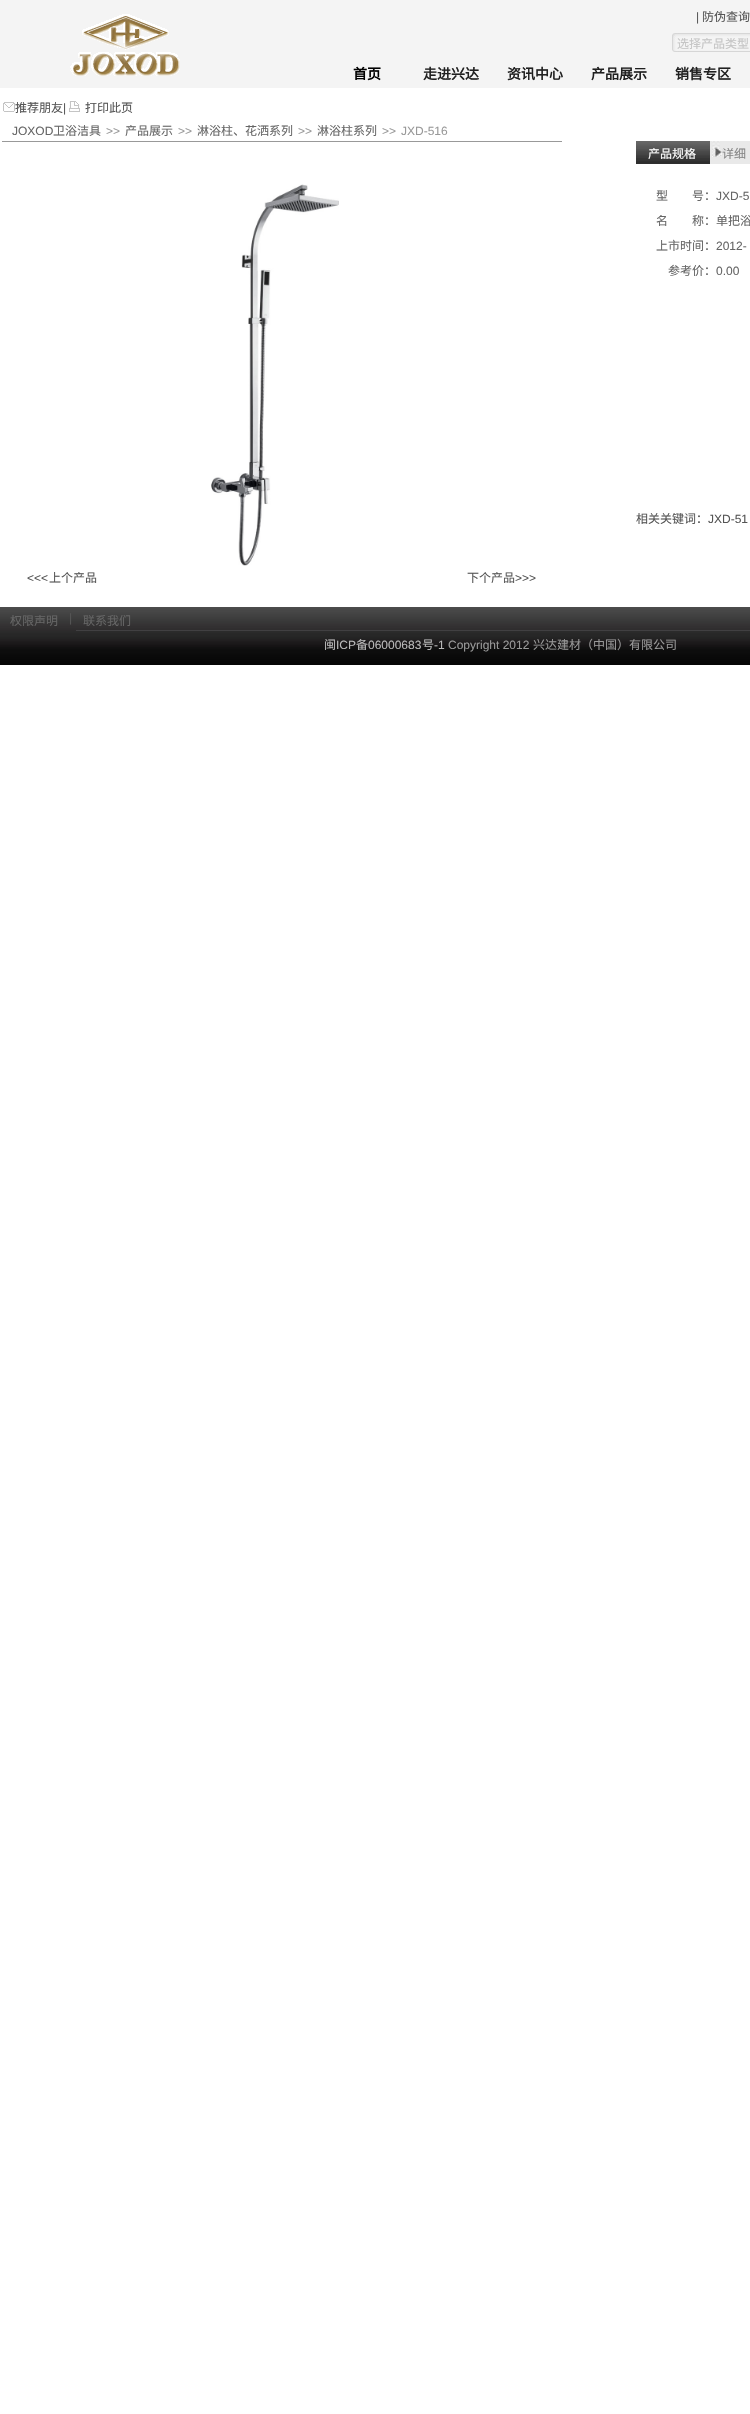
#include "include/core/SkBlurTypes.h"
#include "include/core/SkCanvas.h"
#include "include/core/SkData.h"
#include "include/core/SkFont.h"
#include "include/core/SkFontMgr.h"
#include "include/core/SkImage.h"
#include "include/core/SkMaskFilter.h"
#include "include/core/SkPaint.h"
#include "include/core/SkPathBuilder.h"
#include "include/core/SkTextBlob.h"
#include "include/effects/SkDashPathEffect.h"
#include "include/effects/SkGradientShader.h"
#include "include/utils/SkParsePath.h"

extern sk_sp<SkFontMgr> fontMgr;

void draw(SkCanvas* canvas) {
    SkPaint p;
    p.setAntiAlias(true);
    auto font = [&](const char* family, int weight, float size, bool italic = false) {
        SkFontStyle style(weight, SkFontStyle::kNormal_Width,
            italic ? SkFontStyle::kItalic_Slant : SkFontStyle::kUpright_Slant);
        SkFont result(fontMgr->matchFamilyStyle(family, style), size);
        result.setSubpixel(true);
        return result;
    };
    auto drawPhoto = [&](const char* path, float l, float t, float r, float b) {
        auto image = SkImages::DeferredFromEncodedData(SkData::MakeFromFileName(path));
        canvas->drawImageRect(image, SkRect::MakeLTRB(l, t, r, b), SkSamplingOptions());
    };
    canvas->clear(0xFFFFFFFF);
    p.setColor(0xFFF4F4F4);
    canvas->drawRect(SkRect::MakeLTRB(0, 0, 750, 88), p);
    drawPhoto("media/1.png", 70, 14, 180, 76);
    auto font1 = font("Liberation Sans", 400, 12);
    p.setColor(0xFF555555);
    canvas->drawString("|", 696, 21, font1, p);
    auto font2 = font("Noto Sans CJK SC", 400, 12);
    canvas->drawString("防伪查询", 702, 21, font2, p);
    drawPhoto("media/2.png", 672, 33, 750, 52);
    p.setColor(0xFFC5C5C5);
    canvas->drawString("选择产品类型", 677, 48, font2, p);
    auto font3 = font("Noto Sans CJK SC", 700, 14);
    p.setColor(0xFF000000);
    canvas->drawString("首页", 353, 79, font3, p);
    p.setColor(0xFF202020);
    {
        const struct { const char* s; float x, y; } items[] = {
            {"走进兴达", 423, 79},
            {"资讯中心", 507, 79},
            {"产品展示", 591, 79},
            {"销售专区", 675, 79},
        };
        for (auto [s, x, y] : items) {
            canvas->drawString(s, x, y, font3, p);
        }
    }
    drawPhoto("media/3.png", 3, 102, 15, 112);
    p.setColor(0xFF555555);
    canvas->drawString("推荐朋友", 15, 112, font2, p);
    canvas->drawString("|", 63, 112, font1, p);
    drawPhoto("media/4.png", 69, 101, 80, 112);
    canvas->drawString("打印此页", 85, 112, font2, p);
    p.setColor(0xFF666666);
    canvas->drawString("JOXOD", 12, 135, font1, p);
    canvas->drawString("卫浴洁具", 53, 135, font2, p);
    p.setColor(0xFF999999);
    canvas->drawString(">>", 106, 135, font1, p);
    p.setColor(0xFF666666);
    canvas->drawString("产品展示", 125, 135, font2, p);
    p.setColor(0xFF999999);
    canvas->drawString(">>", 178, 135, font1, p);
    p.setColor(0xFF666666);
    canvas->drawString("淋浴柱、花洒系列", 197, 135, font2, p);
    p.setColor(0xFF999999);
    canvas->drawString(">>", 298, 135, font1, p);
    p.setColor(0xFF666666);
    canvas->drawString("淋浴柱系列", 317, 135, font2, p);
    p.setColor(0xFF999999);
    canvas->drawString(">>", 382, 135, font1, p);
    canvas->drawString("JXD-516", 401, 135, font1, p);
    p.setColor(0xFFE9E9E9);
    canvas->drawRect(SkRect::MakeLTRB(710, 141, 750, 164), p);
    drawPhoto("media/5.png", 636, 141, 710, 164);
    p.setColor(0xFFFFFFFF);
    canvas->drawString("产品规格", 648, 158, font2, p);
    drawPhoto("media/6.png", 712, 141, 724, 157);
    p.setColor(0xFF868686);
    canvas->drawString("详细", 722, 158, font2, p);
    p.setColor(0xFF666666);
    canvas->drawString("型　　号：", 656, 200, font2, p);
    canvas->drawString("JXD-5", 716, 200, font1, p);
    canvas->drawString("名　　称：单把浴", 656, 225, font2, p);
    canvas->drawString("上市时间：", 656, 250, font2, p);
    canvas->drawString("2012-", 716, 250, font1, p);
    canvas->drawString("参考价：", 668, 275, font2, p);
    canvas->drawString("0.00", 716, 275, font1, p);
    p.setColor(0xFF555555);
    canvas->drawString("相关关键词：", 636, 523, font2, p);
    canvas->drawString("JXD-51", 708, 523, font1, p);
    p.setColor(0xFF999999);
    canvas->drawRect(SkRect::MakeLTRB(2, 141, 562, 142), p);
    drawPhoto("media/7.png", 211, 184, 339, 566);
    p.setColor(0xFF555555);
    canvas->drawString("<<<", 27, 582, font1, p);
    canvas->drawString("上个产品", 49, 582, font2, p);
    canvas->drawString("下个产品", 467, 582, font2, p);
    canvas->drawString(">>>", 515, 582, font1, p);
    drawPhoto("media/8.png", 0, 607, 750, 665);
    p.setColor(0xFF666666);
    canvas->drawString("权限声明", 10, 625, font2, p);
    p.setColor(0xFF555555);
    canvas->drawString("|", 69, 622, font1, p);
    p.setColor(0xFF666666);
    canvas->drawString("联系我们", 83, 625, font2, p);
    p.setColor(0xFF414042);
    canvas->drawRect(SkRect::MakeLTRB(76, 630, 750, 631), p);
    p.setColor(0xFFB9B9B9);
    canvas->drawString("闽", 324, 649, font2, p);
    canvas->drawString("ICP", 336, 649, font1, p);
    canvas->drawString("备", 356, 649, font2, p);
    canvas->drawString("06000683", 368, 649, font1, p);
    canvas->drawString("号", 422, 649, font2, p);
    canvas->drawString("-1", 434, 649, font1, p);
    p.setColor(0xFF999999);
    canvas->drawString("Copyright 2012", 448, 649, font1, p);
    canvas->drawString("兴达建材（中国）有限公司", 533, 649, font2, p);
}
